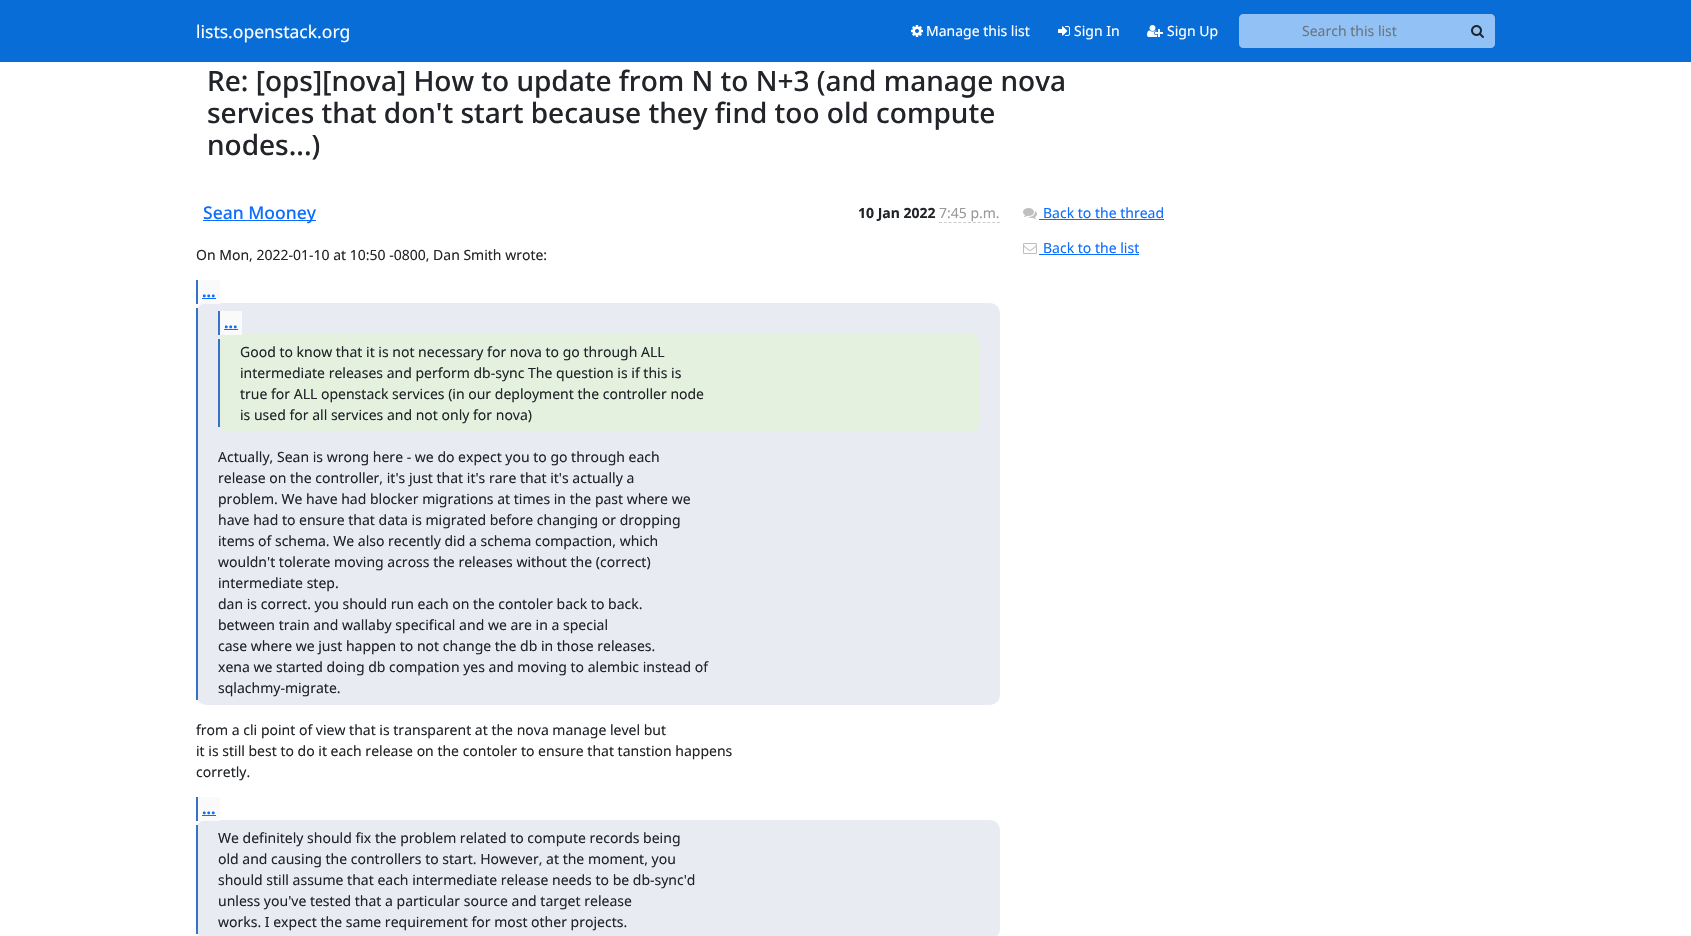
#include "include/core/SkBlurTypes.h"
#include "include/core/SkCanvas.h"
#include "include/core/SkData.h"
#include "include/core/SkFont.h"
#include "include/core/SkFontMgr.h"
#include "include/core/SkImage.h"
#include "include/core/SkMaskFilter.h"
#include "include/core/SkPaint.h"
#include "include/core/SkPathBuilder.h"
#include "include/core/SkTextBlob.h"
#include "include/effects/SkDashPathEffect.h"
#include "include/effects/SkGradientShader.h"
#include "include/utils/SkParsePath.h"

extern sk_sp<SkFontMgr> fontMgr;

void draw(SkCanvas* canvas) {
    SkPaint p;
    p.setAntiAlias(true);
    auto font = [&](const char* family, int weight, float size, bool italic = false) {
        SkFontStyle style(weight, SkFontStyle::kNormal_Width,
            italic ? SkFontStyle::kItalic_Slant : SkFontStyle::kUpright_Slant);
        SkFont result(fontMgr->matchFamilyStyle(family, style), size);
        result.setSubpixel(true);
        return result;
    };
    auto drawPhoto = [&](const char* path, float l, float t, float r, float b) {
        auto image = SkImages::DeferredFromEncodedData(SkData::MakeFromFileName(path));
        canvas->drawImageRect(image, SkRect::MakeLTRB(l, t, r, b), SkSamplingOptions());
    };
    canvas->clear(0xFFFFFFFF);
    p.setColor(0xFF086DD7);
    canvas->drawRect(SkRect::MakeLTRB(0, 0, 1691, 62), p);
    auto font1 = font("Noto Sans", 400, 17.5f);
    p.setColor(0xFFFFFFFF);
    canvas->drawString("lists.openstack.org", 196, 38, font1, p);
    drawPhoto("media/1.png", 911, 25, 923, 37);
    auto font2 = font("Noto Sans", 400, 14);
    canvas->drawString("Manage this list", 926, 36, font2, p);
    drawPhoto("media/2.png", 1058, 26, 1070, 36);
    canvas->drawString("Sign In", 1074, 36, font2, p);
    drawPhoto("media/3.png", 1147, 25, 1163, 37);
    canvas->drawString("Sign Up", 1167, 36, font2, p);
    p.setColor(0xFF92C2F5);
    canvas->drawPath(SkPathBuilder().moveTo(1243, 14).lineTo(1460, 14).lineTo(1460, 48).lineTo(1243, 48).cubicTo(1241, 48, 1239, 46, 1239, 44).lineTo(1239, 18).cubicTo(1239, 16, 1241, 14, 1243, 14).close().detach(), p);
    p.setColor(0xFF6C757D);
    canvas->drawString("Search this list", 1302, 36, font2, p);
    p.setColor(0xFF92C2F5);
    canvas->drawPath(SkPathBuilder().moveTo(1459, 14).lineTo(1491, 14).cubicTo(1493, 14, 1495, 16, 1495, 18).lineTo(1495, 44).cubicTo(1495, 46, 1493, 48, 1491, 48).lineTo(1459, 48).close().detach(), p);
    drawPhoto("media/4.png", 1471, 25, 1484, 38);
    auto font3 = font("Noto Sans", 500, 28);
    p.setColor(0xFF212529);
    {
        const struct { const char* s; float x, y; } items[] = {
            {"Re: [ops][nova] How to update from N to N+3 (and manage nova", 207, 91},
            {"services that don't start because they find too old compute", 207, 123},
            {"nodes...)", 207, 155},
        };
        for (auto [s, x, y] : items) {
            canvas->drawString(s, x, y, font3, p);
        }
    }
    p.setColor(0xFF0D6EFD);
    canvas->drawRect(SkRect::MakeLTRB(203, 220, 316, 221), p);
    auto font4 = font("Noto Sans", 500, 17.5f);
    canvas->drawString("Sean Mooney", 203, 219, font4, p);
    auto font5 = font("Noto Sans", 700, 14);
    p.setColor(0xFF212529);
    canvas->drawString("10 Jan 2022", 858, 218, font5, p);
    p.setColor(0xFF999999);
    canvas->drawString("7:45 p.m.", 939, 218, font2, p);
    p.setStyle(SkPaint::kStroke_Style);
    p.setStrokeWidth(1);
    p.setColor(0xFFCCCCCC);
    p.setPathEffect(SkDashPathEffect::Make({{3, 1.83f}}, 0));
    canvas->drawPath(SkPathBuilder().moveTo(939, 222.5f).lineTo(1000, 222.5f).detach(), p);
    p.setPathEffect(nullptr);
    p.setStyle(SkPaint::kFill_Style);
    p.setColor(0xFF212529);
    canvas->drawString("On Mon, 2022-01-10 at 10:50 -0800, Dan Smith wrote:", 196, 260, font2, p);
    p.setColor(0xFFE8ECF2);
    canvas->drawRoundRect(SkRect::MakeLTRB(196, 303, 1000, 705), 10, 10, p);
    p.setColor(0xFFFAFAFA);
    canvas->drawRect(SkRect::MakeLTRB(198, 280, 220, 304), p);
    auto font6 = font("Noto Sans", 700, 16);
    p.setColor(0xFF0D6EFD);
    canvas->drawString("...", 202, 297, font6, p);
    {
        const struct { float l, t, r, b; SkColor color; } items[] = {
            {196, 280, 198, 304, 0xFF3771C8},
            {202, 298, 216, 299, 0xFF0D6EFD},
            {196, 308, 198, 700, 0xFF3771C8},
        };
        for (auto [l, t, r, b, color] : items) {
            p.setColor(color);
            canvas->drawRect(SkRect::MakeLTRB(l, t, r, b), p);
        }
    }
    p.setColor(0xFFE4F1DF);
    canvas->drawRoundRect(SkRect::MakeLTRB(218, 334, 980, 432), 10, 10, p);
    p.setColor(0xFFFAFAFA);
    canvas->drawRect(SkRect::MakeLTRB(220, 311, 242, 335), p);
    p.setColor(0xFF0D6EFD);
    canvas->drawString("...", 224, 328, font6, p);
    {
        const struct { float l, t, r, b; SkColor color; } items[] = {
            {218, 311, 220, 335, 0xFF3771C8},
            {224, 329, 238, 330, 0xFF0D6EFD},
            {218, 339, 220, 427, 0xFF3771C8},
        };
        for (auto [l, t, r, b, color] : items) {
            p.setColor(color);
            canvas->drawRect(SkRect::MakeLTRB(l, t, r, b), p);
        }
    }
    p.setColor(0xFF212529);
    {
        const struct { const char* s; float x, y; } items[] = {
            {"Good to know that it is not necessary for nova to go through ALL", 240, 357},
            {"intermediate releases and perform db-sync The question is if this is", 240, 378},
            {"true for ALL openstack services (in our deployment the controller node", 240, 399},
            {"is used for all services and not only for nova)", 240, 420},
            {"Actually, Sean is wrong here - we do expect you to go through each", 218, 462},
            {"release on the controller, it's just that it's rare that it's actually a", 218, 483},
            {"problem. We have had blocker migrations at times in the past where we", 218, 504},
            {"have had to ensure that data is migrated before changing or dropping", 218, 525},
            {"items of schema. We also recently did a schema compaction, which", 218, 546},
            {"wouldn't tolerate moving across the releases without the (correct)", 218, 567},
            {"intermediate step.", 218, 588},
            {"dan is correct. you should run each on the contoler back to back.", 218, 609},
            {"between train and wallaby specifical and we are in a special", 218, 630},
            {"case where we just happen to not change the db in those releases.", 218, 651},
            {"xena we started doing db compation yes and moving to alembic instead of", 218, 672},
            {"sqlachmy-migrate.", 218, 693},
            {"from a cli point of view that is transparent at the nova manage level but", 196, 735},
            {"it is still best to do it each release on the contoler to ensure that tanstion happens", 196, 756},
            {"corretly.", 196, 777},
        };
        for (auto [s, x, y] : items) {
            canvas->drawString(s, x, y, font2, p);
        }
    }
    p.setColor(0xFFE8ECF2);
    canvas->drawRoundRect(SkRect::MakeLTRB(196, 820, 1000, 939), 10, 10, p);
    p.setColor(0xFFFAFAFA);
    canvas->drawRect(SkRect::MakeLTRB(198, 797, 220, 821), p);
    p.setColor(0xFF0D6EFD);
    canvas->drawString("...", 202, 814, font6, p);
    {
        const struct { float l, t, r, b; SkColor color; } items[] = {
            {196, 797, 198, 821, 0xFF3771C8},
            {202, 815, 216, 816, 0xFF0D6EFD},
            {196, 825, 198, 934, 0xFF3771C8},
        };
        for (auto [l, t, r, b, color] : items) {
            p.setColor(color);
            canvas->drawRect(SkRect::MakeLTRB(l, t, r, b), p);
        }
    }
    p.setColor(0xFF212529);
    {
        const struct { const char* s; float x, y; } items[] = {
            {"We definitely should fix the problem related to compute records being", 218, 843},
            {"old and causing the controllers to start. However, at the moment, you", 218, 864},
            {"should still assume that each intermediate release needs to be db-sync'd", 218, 885},
            {"unless you've tested that a particular source and target release", 218, 906},
            {"works. I expect the same requirement for most other projects.", 218, 927},
        };
        for (auto [s, x, y] : items) {
            canvas->drawString(s, x, y, font2, p);
        }
    }
    drawPhoto("media/5.png", 1023, 208, 1037, 219);
    p.setColor(0xFF0D6EFD);
    canvas->drawString("Back to the thread", 1043, 218, font2, p);
    canvas->drawRect(SkRect::MakeLTRB(1039, 219, 1164, 220), p);
    drawPhoto("media/6.png", 1023, 243, 1037, 254);
    canvas->drawString("Back to the list", 1043, 253, font2, p);
    canvas->drawRect(SkRect::MakeLTRB(1039, 254, 1139, 255), p);
}
